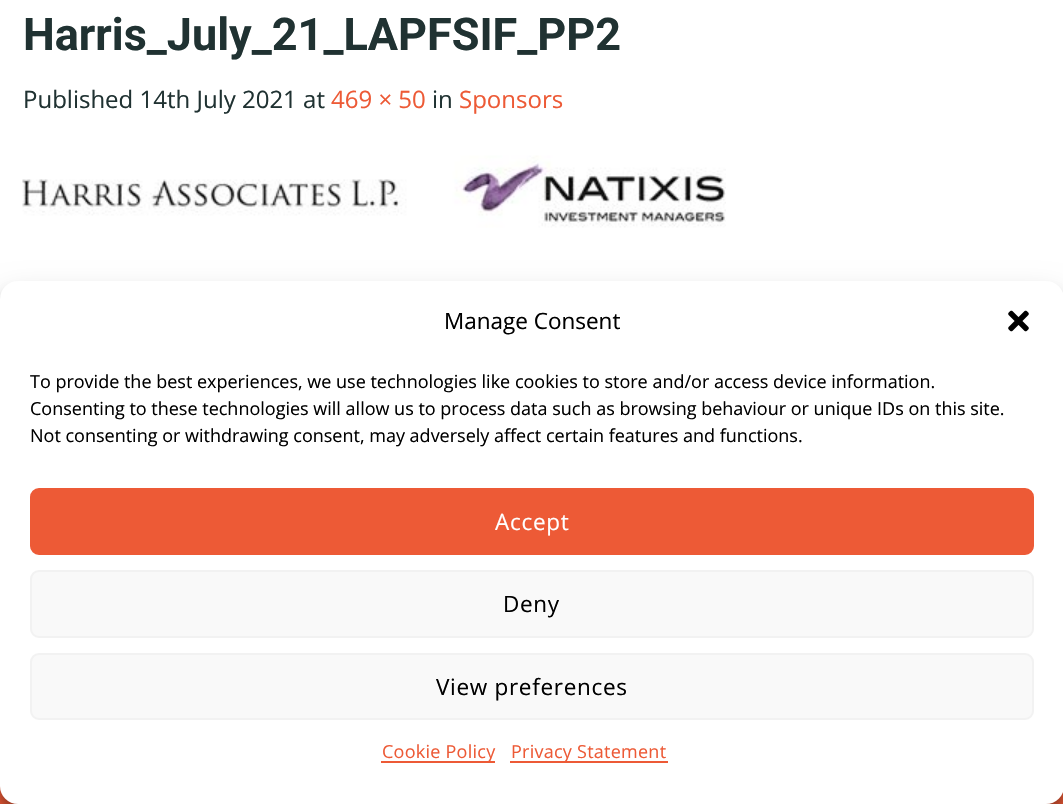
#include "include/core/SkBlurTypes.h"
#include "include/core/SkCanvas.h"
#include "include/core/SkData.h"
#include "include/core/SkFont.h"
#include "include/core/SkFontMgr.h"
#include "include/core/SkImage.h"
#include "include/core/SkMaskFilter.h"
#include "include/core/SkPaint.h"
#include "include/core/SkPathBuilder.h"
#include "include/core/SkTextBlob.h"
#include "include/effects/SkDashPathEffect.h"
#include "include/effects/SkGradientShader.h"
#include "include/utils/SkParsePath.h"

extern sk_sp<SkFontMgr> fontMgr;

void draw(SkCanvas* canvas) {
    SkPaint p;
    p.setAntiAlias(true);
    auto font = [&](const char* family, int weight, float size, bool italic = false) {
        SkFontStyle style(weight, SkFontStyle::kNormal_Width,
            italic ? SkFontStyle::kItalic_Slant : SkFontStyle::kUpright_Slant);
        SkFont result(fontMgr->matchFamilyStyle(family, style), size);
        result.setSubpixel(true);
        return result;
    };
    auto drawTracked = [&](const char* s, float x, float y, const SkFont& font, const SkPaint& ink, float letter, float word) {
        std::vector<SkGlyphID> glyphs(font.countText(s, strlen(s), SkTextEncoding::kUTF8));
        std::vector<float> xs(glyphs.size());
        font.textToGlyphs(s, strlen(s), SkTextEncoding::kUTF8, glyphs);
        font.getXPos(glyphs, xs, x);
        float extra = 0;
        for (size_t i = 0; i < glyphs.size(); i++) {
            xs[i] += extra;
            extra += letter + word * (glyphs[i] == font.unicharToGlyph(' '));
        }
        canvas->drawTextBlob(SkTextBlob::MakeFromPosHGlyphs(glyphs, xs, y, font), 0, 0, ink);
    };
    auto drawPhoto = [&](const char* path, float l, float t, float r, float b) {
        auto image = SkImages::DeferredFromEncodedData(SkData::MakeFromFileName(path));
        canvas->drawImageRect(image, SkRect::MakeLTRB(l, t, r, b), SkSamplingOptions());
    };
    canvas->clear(0xFFFFFFFF);
    auto font1 = font("Roboto", 700, 45);
    p.setColor(0xFF203232);
    canvas->drawString("Harris_July_21_LAPFSIF_PP2", 23, 50, font1, p);
    auto font2 = font("Open Sans", 400, 24);
    canvas->drawString("Published 14th July 2021 at", 23, 108, font2, p);
    p.setColor(0xFFED5A36);
    canvas->drawString("469 × 50", 331, 108, font2, p);
    p.setColor(0xFF203232);
    canvas->drawString("in", 432, 108, font2, p);
    p.setColor(0xFFED5A36);
    canvas->drawString("Sponsors", 459, 108, font2, p);
    drawPhoto("media/1.png", 22, 155, 726, 228);
    canvas->drawRect(SkRect::MakeLTRB(0, 786, 1063, 804), p);
    p.setColor(0x3B000000);
    p.setMaskFilter(SkMaskFilter::MakeBlur(kNormal_SkBlurStyle, 4.5f));
    canvas->drawRoundRect(SkRect::MakeLTRB(0, 290, 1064, 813), 18, 18, p);
    p.setMaskFilter(nullptr);
    p.setColor(0x30000000);
    p.setMaskFilter(SkMaskFilter::MakeBlur(kNormal_SkBlurStyle, 15));
    canvas->drawRoundRect(SkRect::MakeLTRB(0, 296, 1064, 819), 18, 18, p);
    p.setMaskFilter(nullptr);
    p.setColor(0xFFFFFFFF);
    canvas->drawRoundRect(SkRect::MakeLTRB(0, 281, 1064, 804), 18, 18, p);
    auto font3 = font("Open Sans", 400, 22.5f);
    p.setColor(0xFF000000);
    canvas->drawString("Manage Consent", 444, 329, font3, p);
    drawPhoto("media/2.png", 1008, 310, 1029, 332);
    auto font4 = font("Open Sans", 400, 18);
    {
        const struct { const char* s; float x, y; } items[] = {
            {"To provide the best experiences, we use technologies like cookies to store and/or access device information.", 30, 388},
            {"Consenting to these technologies will allow us to process data such as browsing behaviour or unique IDs on this site.", 30, 415},
            {"Not consenting or withdrawing consent, may adversely affect certain features and functions.", 30, 442},
        };
        for (auto [s, x, y] : items) {
            canvas->drawString(s, x, y, font4, p);
        }
    }
    p.setColor(0xFFED5A36);
    canvas->drawRoundRect(SkRect::MakeLTRB(31, 489, 1033, 554), 8, 8, p);
    p.setStyle(SkPaint::kStroke_Style);
    p.setStrokeWidth(2);
    canvas->drawRoundRect(SkRect::MakeLTRB(31, 489, 1033, 554), 8, 8, p);
    p.setStyle(SkPaint::kFill_Style);
    p.setColor(0xFFFFFFFF);
    drawTracked("Accept", 495, 530, font3, p, 0.7f, 0);
    p.setColor(0xFFF9F9F9);
    canvas->drawRoundRect(SkRect::MakeLTRB(31, 571, 1033, 637), 8, 8, p);
    p.setStyle(SkPaint::kStroke_Style);
    p.setColor(0xFFF2F2F2);
    canvas->drawRoundRect(SkRect::MakeLTRB(31, 571, 1033, 637), 8, 8, p);
    p.setStyle(SkPaint::kFill_Style);
    p.setColor(0xFF000000);
    drawTracked("Deny", 503, 612, font3, p, 0.7f, 0);
    p.setColor(0xFFF9F9F9);
    canvas->drawRoundRect(SkRect::MakeLTRB(31, 654, 1033, 719), 8, 8, p);
    p.setStyle(SkPaint::kStroke_Style);
    p.setColor(0xFFF2F2F2);
    canvas->drawRoundRect(SkRect::MakeLTRB(31, 654, 1033, 719), 8, 8, p);
    p.setStyle(SkPaint::kFill_Style);
    p.setColor(0xFF000000);
    drawTracked("View preferences", 436, 695, font3, p, 0.7f, 0);
    p.setColor(0xFFED5A36);
    canvas->drawRect(SkRect::MakeLTRB(381, 761, 495, 763), p);
    drawTracked("Cookie Policy", 382, 758, font4, p, 0.25f, 0);
    canvas->drawRect(SkRect::MakeLTRB(510, 761, 668, 763), p);
    drawTracked("Privacy Statement", 511, 758, font4, p, 0.25f, 0);
}
